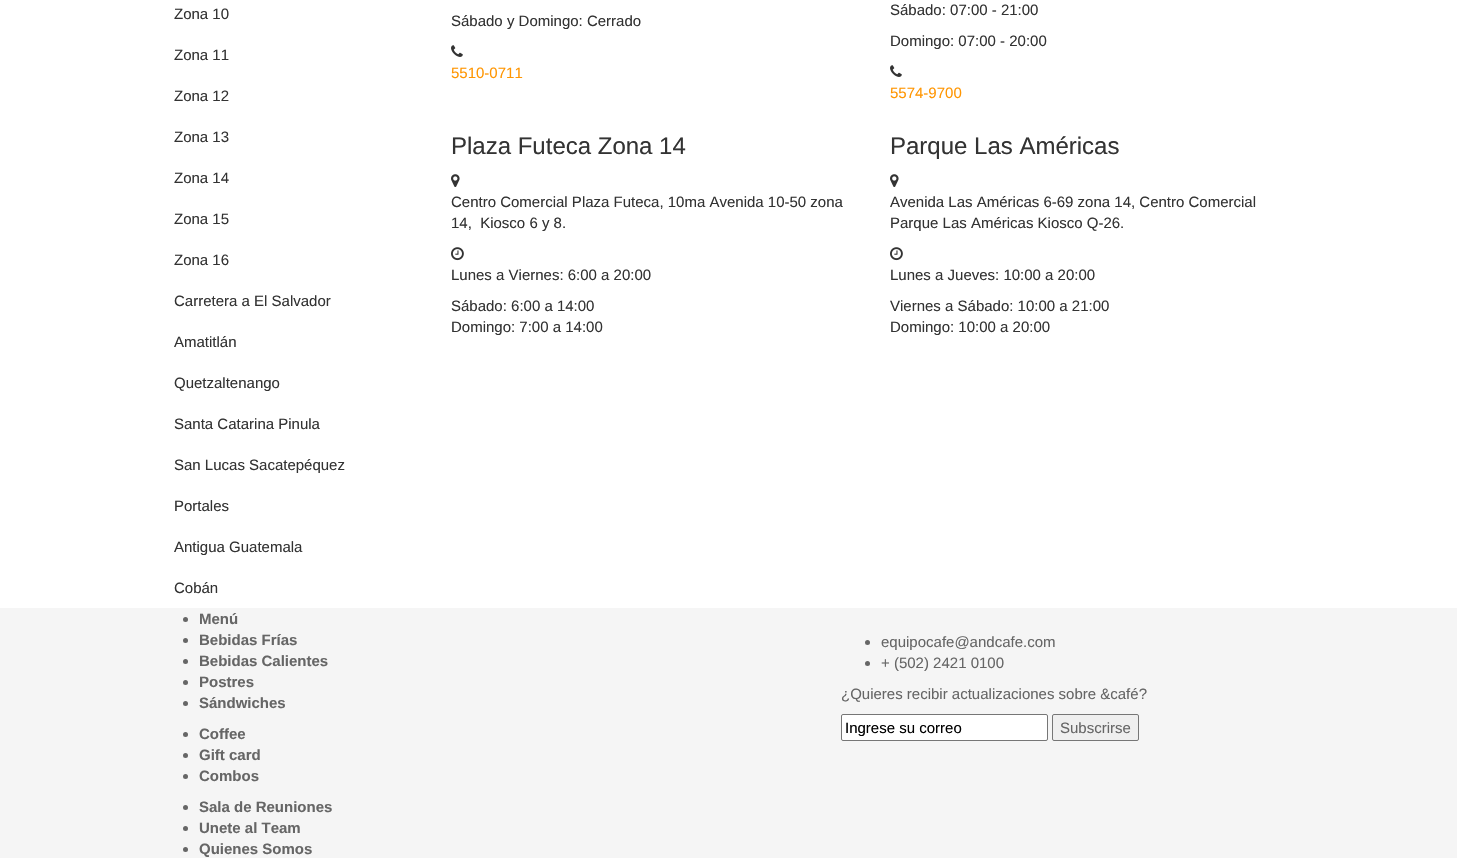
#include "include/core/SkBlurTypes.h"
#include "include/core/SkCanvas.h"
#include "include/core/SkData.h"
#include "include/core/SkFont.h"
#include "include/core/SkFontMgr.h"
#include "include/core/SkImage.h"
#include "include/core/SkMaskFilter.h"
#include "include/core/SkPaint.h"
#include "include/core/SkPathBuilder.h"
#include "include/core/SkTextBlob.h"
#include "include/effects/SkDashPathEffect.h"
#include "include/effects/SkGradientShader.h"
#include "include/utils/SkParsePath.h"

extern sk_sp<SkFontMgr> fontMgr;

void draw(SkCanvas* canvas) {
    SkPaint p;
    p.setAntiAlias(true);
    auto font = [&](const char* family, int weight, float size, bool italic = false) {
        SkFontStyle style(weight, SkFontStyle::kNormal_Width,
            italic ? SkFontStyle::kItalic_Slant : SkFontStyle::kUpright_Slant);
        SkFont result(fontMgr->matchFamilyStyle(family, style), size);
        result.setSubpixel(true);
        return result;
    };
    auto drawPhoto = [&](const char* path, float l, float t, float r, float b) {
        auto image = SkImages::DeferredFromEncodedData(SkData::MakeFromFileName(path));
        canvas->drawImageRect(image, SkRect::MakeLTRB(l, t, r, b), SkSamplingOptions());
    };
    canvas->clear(0xFFFFFFFF);
    auto font1 = font("Liberation Sans", 400, 15);
    p.setColor(0xFF333333);
    {
        const struct { const char* s; float x, y; } items[] = {
            {"Zona 10", 174, 19},
            {"Zona 11", 174, 60},
            {"Zona 12", 174, 101},
            {"Zona 13", 174, 142},
            {"Zona 14", 174, 183},
            {"Zona 15", 174, 224},
            {"Zona 16", 174, 265},
            {"Carretera a El Salvador", 174, 306},
            {"Amatitlán", 174, 347},
            {"Quetzaltenango", 174, 388},
            {"Santa Catarina Pinula", 174, 429},
            {"San Lucas Sacatepéquez", 174, 470},
            {"Portales", 174, 511},
            {"Antigua Guatemala", 174, 552},
            {"Cobán", 174, 593},
            {"Sábado y Domingo: Cerrado", 451, 26},
        };
        for (auto [s, x, y] : items) {
            canvas->drawString(s, x, y, font1, p);
        }
    }
    drawPhoto("media/1.png", 451, 45, 463, 57);
    p.setColor(0xFFFF9602);
    canvas->drawString("5510-0711", 451, 78, font1, p);
    p.setColor(0xFF333333);
    canvas->drawString("Sábado: 07:00 - 21:00", 890, 15, font1, p);
    canvas->drawString("Domingo: 07:00 - 20:00", 890, 46, font1, p);
    drawPhoto("media/1.png", 890, 65, 902, 77);
    p.setColor(0xFFFF9602);
    canvas->drawString("5574-9700", 890, 98, font1, p);
    auto font2 = font("Liberation Sans", 400, 24);
    p.setColor(0xFF333333);
    canvas->drawString("Plaza Futeca Zona 14", 451, 154, font2, p);
    drawPhoto("media/2.png", 451, 174, 460, 187);
    canvas->drawString("Centro Comercial Plaza Futeca, 10ma Avenida 10-50 zona", 451, 207, font1, p);
    canvas->drawString("14,  Kiosco 6 y 8.", 451, 228, font1, p);
    drawPhoto("media/3.png", 451, 247, 464, 261);
    {
        const struct { const char* s; float x, y; } items[] = {
            {"Lunes a Viernes: 6:00 a 20:00", 451, 280},
            {"Sábado: 6:00 a 14:00", 451, 311},
            {"Domingo: 7:00 a 14:00", 451, 332},
        };
        for (auto [s, x, y] : items) {
            canvas->drawString(s, x, y, font1, p);
        }
    }
    canvas->drawString("Parque Las Américas", 890, 154, font2, p);
    drawPhoto("media/2.png", 890, 174, 899, 187);
    canvas->drawString("Avenida Las Américas 6-69 zona 14, Centro Comercial", 890, 207, font1, p);
    canvas->drawString("Parque Las Américas Kiosco Q-26.", 890, 228, font1, p);
    drawPhoto("media/3.png", 890, 247, 903, 261);
    {
        const struct { const char* s; float x, y; } items[] = {
            {"Lunes a Jueves: 10:00 a 20:00", 890, 280},
            {"Viernes a Sábado: 10:00 a 21:00", 890, 311},
            {"Domingo: 10:00 a 20:00", 890, 332},
        };
        for (auto [s, x, y] : items) {
            canvas->drawString(s, x, y, font1, p);
        }
    }
    p.setColor(0xFFF5F5F5);
    canvas->drawRect(SkRect::MakeLTRB(0, 608, 1457, 858), p);
    p.setColor(0xFF666666);
    canvas->drawCircle(185.5f, 619.5f, 2.5f, p);
    auto font3 = font("Liberation Sans", 700, 15);
    canvas->drawString("Menú", 199, 624, font3, p);
    canvas->drawCircle(185.5f, 640.5f, 2.5f, p);
    canvas->drawString("Bebidas Frías", 199, 645, font3, p);
    canvas->drawCircle(185.5f, 661.5f, 2.5f, p);
    canvas->drawString("Bebidas Calientes", 199, 666, font3, p);
    canvas->drawCircle(185.5f, 682.5f, 2.5f, p);
    canvas->drawString("Postres", 199, 687, font3, p);
    canvas->drawCircle(185.5f, 703.5f, 2.5f, p);
    canvas->drawString("Sándwiches", 199, 708, font3, p);
    canvas->drawCircle(185.5f, 734.5f, 2.5f, p);
    canvas->drawString("Coffee", 199, 739, font3, p);
    canvas->drawCircle(185.5f, 755.5f, 2.5f, p);
    canvas->drawString("Gift card", 199, 760, font3, p);
    canvas->drawCircle(185.5f, 776.5f, 2.5f, p);
    canvas->drawString("Combos", 199, 781, font3, p);
    canvas->drawCircle(185.5f, 807.5f, 2.5f, p);
    canvas->drawString("Sala de Reuniones", 199, 812, font3, p);
    canvas->drawCircle(185.5f, 828.5f, 2.5f, p);
    canvas->drawString("Unete al Team", 199, 833, font3, p);
    canvas->drawCircle(185.5f, 849.5f, 2.5f, p);
    canvas->drawString("Quienes Somos", 199, 854, font3, p);
    canvas->drawCircle(867.5f, 642.5f, 2.5f, p);
    canvas->drawString("equipocafe@andcafe.com", 881, 647, font1, p);
    canvas->drawCircle(867.5f, 663.5f, 2.5f, p);
    canvas->drawString("+ (502) 2421 0100", 881, 668, font1, p);
    canvas->drawString("¿Quieres recibir actualizaciones sobre &café?", 841, 699, font1, p);
    p.setColor(0xFFFFFFFF);
    canvas->drawRoundRect(SkRect::MakeLTRB(841.5f, 714.5f, 1047.5f, 740.5f), 1.5f, 1.5f, p);
    p.setStyle(SkPaint::kStroke_Style);
    p.setStrokeWidth(1);
    p.setColor(0xFF767676);
    canvas->drawRoundRect(SkRect::MakeLTRB(841.5f, 714.5f, 1047.5f, 740.5f), 1.5f, 1.5f, p);
    p.setStyle(SkPaint::kFill_Style);
    p.setColor(0xFF000000);
    canvas->drawString("Ingrese su correo", 845, 733, font1, p);
    p.setColor(0xFFEFEFEF);
    canvas->drawRoundRect(SkRect::MakeLTRB(1052.5f, 714.5f, 1138.5f, 740.5f), 1.5f, 1.5f, p);
    p.setStyle(SkPaint::kStroke_Style);
    p.setColor(0xFF767676);
    canvas->drawRoundRect(SkRect::MakeLTRB(1052.5f, 714.5f, 1138.5f, 740.5f), 1.5f, 1.5f, p);
    p.setStyle(SkPaint::kFill_Style);
    p.setColor(0xFF666666);
    canvas->drawString("Subscrirse", 1060, 733, font1, p);
}
